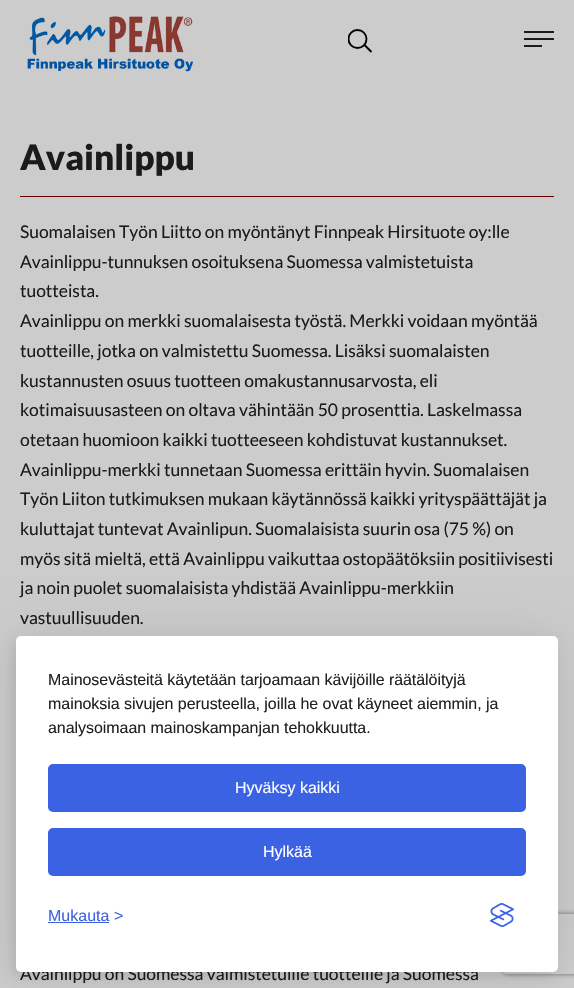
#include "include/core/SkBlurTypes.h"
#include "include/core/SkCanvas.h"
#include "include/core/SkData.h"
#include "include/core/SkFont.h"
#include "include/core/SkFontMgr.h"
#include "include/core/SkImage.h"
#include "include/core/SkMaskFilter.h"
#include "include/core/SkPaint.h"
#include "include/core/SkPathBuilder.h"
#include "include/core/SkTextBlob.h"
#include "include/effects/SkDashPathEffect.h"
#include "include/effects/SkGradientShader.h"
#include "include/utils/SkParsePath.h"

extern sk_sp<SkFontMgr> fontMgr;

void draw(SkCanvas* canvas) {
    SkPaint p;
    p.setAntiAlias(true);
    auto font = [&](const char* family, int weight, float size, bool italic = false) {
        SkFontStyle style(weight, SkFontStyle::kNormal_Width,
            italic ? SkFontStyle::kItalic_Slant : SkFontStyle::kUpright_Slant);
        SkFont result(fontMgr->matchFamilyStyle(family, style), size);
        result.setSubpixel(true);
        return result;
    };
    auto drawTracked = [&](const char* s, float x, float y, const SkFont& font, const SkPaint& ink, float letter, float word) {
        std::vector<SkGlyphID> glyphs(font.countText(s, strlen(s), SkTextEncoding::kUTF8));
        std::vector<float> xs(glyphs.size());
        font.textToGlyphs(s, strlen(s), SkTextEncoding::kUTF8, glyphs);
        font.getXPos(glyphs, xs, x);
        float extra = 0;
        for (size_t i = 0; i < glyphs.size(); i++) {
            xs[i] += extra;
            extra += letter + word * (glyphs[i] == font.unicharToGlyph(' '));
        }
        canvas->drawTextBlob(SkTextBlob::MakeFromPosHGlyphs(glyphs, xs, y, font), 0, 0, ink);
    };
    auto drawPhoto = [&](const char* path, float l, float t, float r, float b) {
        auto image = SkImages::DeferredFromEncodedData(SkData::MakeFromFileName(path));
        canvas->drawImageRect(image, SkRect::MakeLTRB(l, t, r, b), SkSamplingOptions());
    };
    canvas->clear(0xFFCCCCCC);
    drawPhoto("media/1.png", 27, 16, 194, 72);
    canvas->save();
    canvas->clipRect(SkRect::MakeLTRB(348, 29, 372, 53));
    p.setStyle(SkPaint::kStroke_Style);
    p.setStrokeWidth(1.9f);
    p.setColor(0xFF000000);
    canvas->drawCircle(357.5f, 39, 9, p);
    canvas->restore();
    canvas->drawPath(SkPathBuilder().moveTo(364, 44.5f).lineTo(371.5f, 52).detach(), p);
    p.setStyle(SkPaint::kFill_Style);
    {
        const struct { float l, t, r, b; SkColor color; } items[] = {
            {524, 45, 542, 47, 0xFF1B1B1B},
            {524, 31, 554, 33, 0xFF1B1B1B},
            {524, 38, 554, 40, 0xFF1B1B1B},
            {20, 196, 554, 197, 0xFF660000},
        };
        for (auto [l, t, r, b, color] : items) {
            p.setColor(color);
            canvas->drawRect(SkRect::MakeLTRB(l, t, r, b), p);
        }
    }
    auto font1 = font("Lato", 900, 35);
    p.setColor(0xFF1B1B1B);
    canvas->drawString("Avainlippu", 20, 170, font1, p);
    auto font2 = font("Lato", 400, 17.5f);
    {
        const struct { const char* s; float x, y; } items[] = {
            {"Suomalaisen Työn Liitto on myöntänyt Finnpeak Hirsituote oy:lle", 20, 238},
            {"Avainlippu-tunnuksen osoituksena Suomessa valmistetuista", 20, 268},
            {"tuotteista.", 20, 297},
            {"Avainlippu on merkki suomalaisesta työstä. Merkki voidaan myöntää", 20, 327},
            {"tuotteille, jotka on valmistettu Suomessa. Lisäksi suomalaisten", 20, 357},
            {"kustannusten osuus tuotteen omakustannusarvosta, eli", 20, 387},
            {"kotimaisuusasteen on oltava vähintään 50 prosenttia. Laskelmassa", 20, 416},
            {"otetaan huomioon kaikki tuotteeseen kohdistuvat kustannukset.", 20, 446},
            {"Avainlippu-merkki tunnetaan Suomessa erittäin hyvin. Suomalaisen", 20, 476},
            {"Työn Liiton tutkimuksen mukaan käytännössä kaikki yrityspäättäjät ja", 20, 505},
            {"kuluttajat tuntevat Avainlipun. Suomalaisista suurin osa (75 %) on", 20, 535},
            {"myös sitä mieltä, että Avainlippu vaikuttaa ostopäätöksiin positiivisesti", 20, 565},
            {"ja noin puolet suomalaisista yhdistää Avainlippu-merkkiin", 20, 594},
            {"vastuullisuuden.", 20, 624},
            {"Avainlippu on Suomessa valmistetuille tuotteille ja Suomessa", 20, 980},
        };
        for (auto [s, x, y] : items) {
            drawTracked(s, x, y, font2, p, -0.05f, 0);
        }
    }
    p.setColor(0x1A000000);
    p.setMaskFilter(SkMaskFilter::MakeBlur(kNormal_SkBlurStyle, 25));
    canvas->drawRoundRect(SkRect::MakeLTRB(16, 636, 558, 972), 5, 5, p);
    p.setMaskFilter(nullptr);
    p.setColor(0x12000000);
    p.setMaskFilter(SkMaskFilter::MakeBlur(kNormal_SkBlurStyle, 5));
    canvas->drawRoundRect(SkRect::MakeLTRB(11, 641, 553, 977), 5, 5, p);
    p.setMaskFilter(nullptr);
    canvas->save();
    canvas->clipPath(SkPathBuilder(SkPathFillType::kEvenOdd).moveTo(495, 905).lineTo(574, 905).lineTo(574, 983).lineTo(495, 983).close().moveTo(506, 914).lineTo(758, 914).cubicTo(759, 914, 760, 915, 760, 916).lineTo(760, 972).cubicTo(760, 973, 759, 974, 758, 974).lineTo(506, 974).cubicTo(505, 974, 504, 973, 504, 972).lineTo(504, 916).cubicTo(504, 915, 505, 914, 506, 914).close().detach(), true);
    p.setColor(0xFF666666);
    p.setMaskFilter(SkMaskFilter::MakeBlur(kNormal_SkBlurStyle, 2.5f));
    canvas->drawRoundRect(SkRect::MakeLTRB(504, 914, 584, 974), 2, 2, p);
    p.setMaskFilter(nullptr);
    canvas->restore();
    p.setColor(0xFFFFFFFF);
    canvas->drawRoundRect(SkRect::MakeLTRB(16, 636, 558, 972), 5, 5, p);
    auto font3 = font("Liberation Sans", 400, 16);
    p.setColor(0xFF212121);
    {
        const struct { const char* s; float x, y; } items[] = {
            {"Mainosevästeitä käytetään tarjoamaan kävijöille räätälöityjä", 48, 685},
            {"mainoksia sivujen perusteella, joilla he ovat käyneet aiemmin, ja", 48, 709},
            {"analysoimaan mainoskampanjan tehokkuutta.", 48, 733},
        };
        for (auto [s, x, y] : items) {
            drawTracked(s, x, y, font3, p, -0.05f, 0);
        }
    }
    p.setColor(0xFF3B62E2);
    canvas->drawRoundRect(SkRect::MakeLTRB(49, 765, 525, 811), 4, 4, p);
    p.setStyle(SkPaint::kStroke_Style);
    p.setStrokeWidth(2);
    canvas->drawRoundRect(SkRect::MakeLTRB(49, 765, 525, 811), 4, 4, p);
    p.setStyle(SkPaint::kFill_Style);
    p.setColor(0xFFFFFFFF);
    canvas->drawString("Hyväksy kaikki", 235, 793, font3, p);
    p.setColor(0xFF3B62E2);
    canvas->drawRoundRect(SkRect::MakeLTRB(49, 829, 525, 875), 4, 4, p);
    p.setStyle(SkPaint::kStroke_Style);
    canvas->drawRoundRect(SkRect::MakeLTRB(49, 829, 525, 875), 4, 4, p);
    p.setStyle(SkPaint::kFill_Style);
    p.setColor(0xFFFFFFFF);
    canvas->drawString("Hylkää", 263, 857, font3, p);
    p.setColor(0xFF3B62E2);
    canvas->drawString("Mukauta", 48, 921, font3, p);
    canvas->drawRect(SkRect::MakeLTRB(48, 922, 109, 923), p);
    canvas->drawString(">", 114, 921, font3, p);
    drawPhoto("media/2.png", 490, 903, 514, 927);
}
